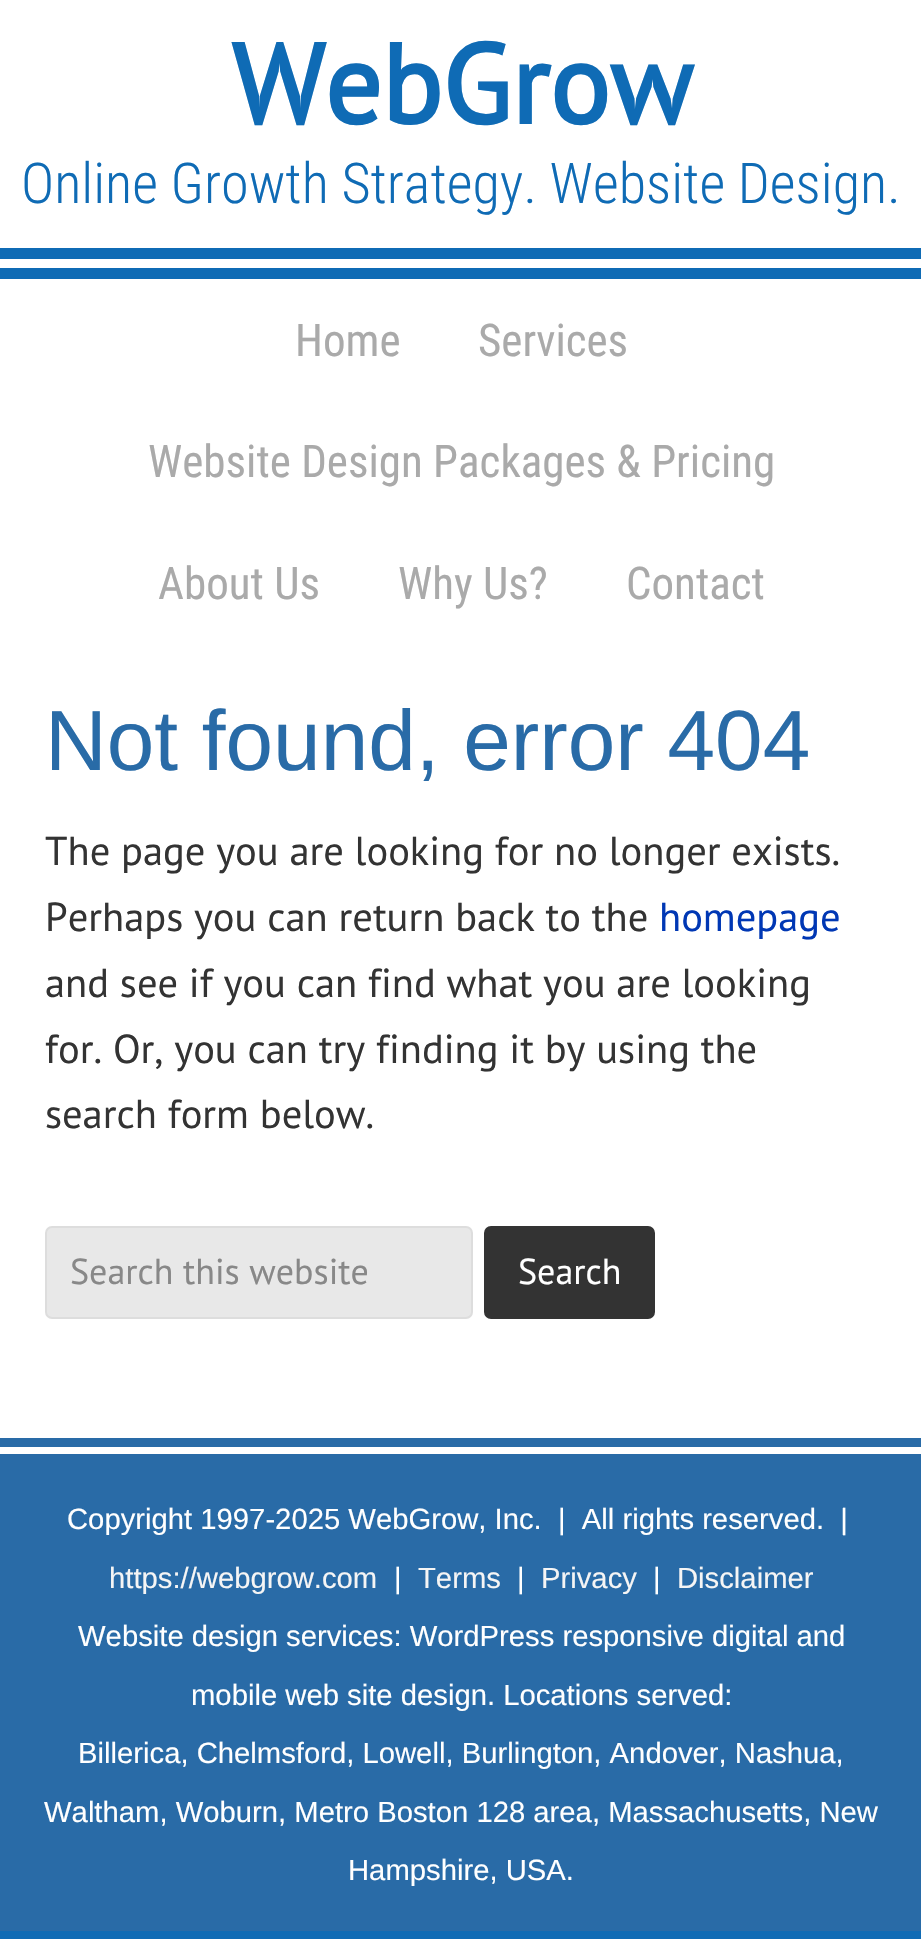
#include "include/core/SkBlurTypes.h"
#include "include/core/SkCanvas.h"
#include "include/core/SkData.h"
#include "include/core/SkFont.h"
#include "include/core/SkFontMgr.h"
#include "include/core/SkImage.h"
#include "include/core/SkMaskFilter.h"
#include "include/core/SkPaint.h"
#include "include/core/SkPathBuilder.h"
#include "include/core/SkTextBlob.h"
#include "include/effects/SkDashPathEffect.h"
#include "include/effects/SkGradientShader.h"
#include "include/utils/SkParsePath.h"

extern sk_sp<SkFontMgr> fontMgr;

void draw(SkCanvas* canvas) {
    SkPaint p;
    p.setAntiAlias(true);
    auto font = [&](const char* family, int weight, float size, bool italic = false) {
        SkFontStyle style(weight, SkFontStyle::kNormal_Width,
            italic ? SkFontStyle::kItalic_Slant : SkFontStyle::kUpright_Slant);
        SkFont result(fontMgr->matchFamilyStyle(family, style), size);
        result.setSubpixel(true);
        return result;
    };
    canvas->clear(0xFF0F6BB5);
    {
        const struct { float l, t, r, b; SkColor color; } items[] = {
            {0, 0, 921, 1438, 0xFFFFFFFF},
            {0, 248, 921, 259, 0xFF0F6BB5},
            {0, 268, 921, 279, 0xFF0F6BB5},
        };
        for (auto [l, t, r, b, color] : items) {
            p.setColor(color);
            canvas->drawRect(SkRect::MakeLTRB(l, t, r, b), p);
        }
    }
    auto font1 = font("PT Sans", 700, 112.5f);
    canvas->drawString("WebGrow", 231, 124, font1, p);
    auto font2 = font("Roboto Condensed", 300, 56.25f);
    canvas->drawString("Online Growth Strategy. Website Design.", 21, 203, font2, p);
    auto font3 = font("Roboto Condensed", 400, 45);
    p.setColor(0xFFAAAAAA);
    {
        const struct { const char* s; float x, y; } items[] = {
            {"Home", 295, 356},
            {"Services", 478, 356},
            {"Website Design Packages & Pricing", 148, 477},
            {"About Us", 158, 599},
            {"Why Us?", 398, 599},
            {"Contact", 626, 599},
        };
        for (auto [s, x, y] : items) {
            canvas->drawString(s, x, y, font3, p);
        }
    }
    auto font4 = font("Liberation Sans", 400, 85.5f);
    p.setColor(0xFF296BA7);
    canvas->drawString("Not found, error 404", 45, 770, font4, p);
    auto font5 = font("PT Sans", 400, 40.5f);
    p.setColor(0xFF333333);
    canvas->drawString("The page you are looking for no longer exists.", 45, 865, font5, p);
    canvas->drawString("Perhaps you can return back to the", 45, 931, font5, p);
    p.setColor(0xFF0037B4);
    canvas->drawString("homepage", 659, 931, font5, p);
    p.setColor(0xFF333333);
    {
        const struct { const char* s; float x, y; } items[] = {
            {"and see if you can find what you are looking", 45, 997},
            {"for. Or, you can try finding it by using the", 45, 1063},
            {"search form below.", 45, 1128},
        };
        for (auto [s, x, y] : items) {
            canvas->drawString(s, x, y, font5, p);
        }
    }
    p.setColor(0xFFE8E8E8);
    canvas->drawRoundRect(SkRect::MakeLTRB(46, 1227, 472, 1318), 6, 6, p);
    p.setStyle(SkPaint::kStroke_Style);
    p.setStrokeWidth(2);
    p.setColor(0xFFDDDDDD);
    canvas->drawRoundRect(SkRect::MakeLTRB(46, 1227, 472, 1318), 6, 6, p);
    auto font6 = font("PT Sans", 400, 36);
    p.setStyle(SkPaint::kFill_Style);
    p.setColor(0xFF888888);
    canvas->drawString("Search this website", 70, 1284, font6, p);
    p.setColor(0xFF333333);
    canvas->drawRoundRect(SkRect::MakeLTRB(485, 1227, 654, 1318), 6, 6, p);
    p.setStyle(SkPaint::kStroke_Style);
    canvas->drawRoundRect(SkRect::MakeLTRB(485, 1227, 654, 1318), 6, 6, p);
    p.setStyle(SkPaint::kFill_Style);
    p.setColor(0xFFFFFFFF);
    canvas->drawString("Search", 518, 1284, font6, p);
    p.setColor(0xFF296BA7);
    canvas->drawRect(SkRect::MakeLTRB(0, 1438, 921, 1931), p);
    p.setColor(0xFFFFFFFF);
    canvas->drawRect(SkRect::MakeLTRB(0, 1447, 921, 1454), p);
    auto font7 = font("Liberation Sans", 400, 29.25f);
    canvas->drawString("Copyright 1997-2025 WebGrow, Inc.  |  All rights reserved.  |", 67, 1529, font7, p);
    p.setColor(0xFFF5F5F5);
    canvas->drawString("https://webgrow.com", 109, 1588, font7, p);
    p.setColor(0xFFFFFFFF);
    canvas->drawString("|", 394, 1588, font7, p);
    p.setColor(0xFFF5F5F5);
    canvas->drawString("Terms", 418, 1588, font7, p);
    p.setColor(0xFFFFFFFF);
    canvas->drawString("|", 517, 1588, font7, p);
    p.setColor(0xFFF5F5F5);
    canvas->drawString("Privacy", 541, 1588, font7, p);
    p.setColor(0xFFFFFFFF);
    canvas->drawString("|", 653, 1588, font7, p);
    p.setColor(0xFFF5F5F5);
    canvas->drawString("Disclaimer", 677, 1588, font7, p);
    p.setColor(0xFFFFFFFF);
    {
        const struct { const char* s; float x, y; } items[] = {
            {"Website design services: WordPress responsive digital and", 78, 1646},
            {"mobile web site design. Locations served:", 191, 1705},
            {"Billerica, Chelmsford, Lowell, Burlington, Andover, Nashua,", 78, 1763},
            {"Waltham, Woburn, Metro Boston 128 area, Massachusetts, New", 44, 1822},
            {"Hampshire, USA.", 348, 1880},
        };
        for (auto [s, x, y] : items) {
            canvas->drawString(s, x, y, font7, p);
        }
    }
}
